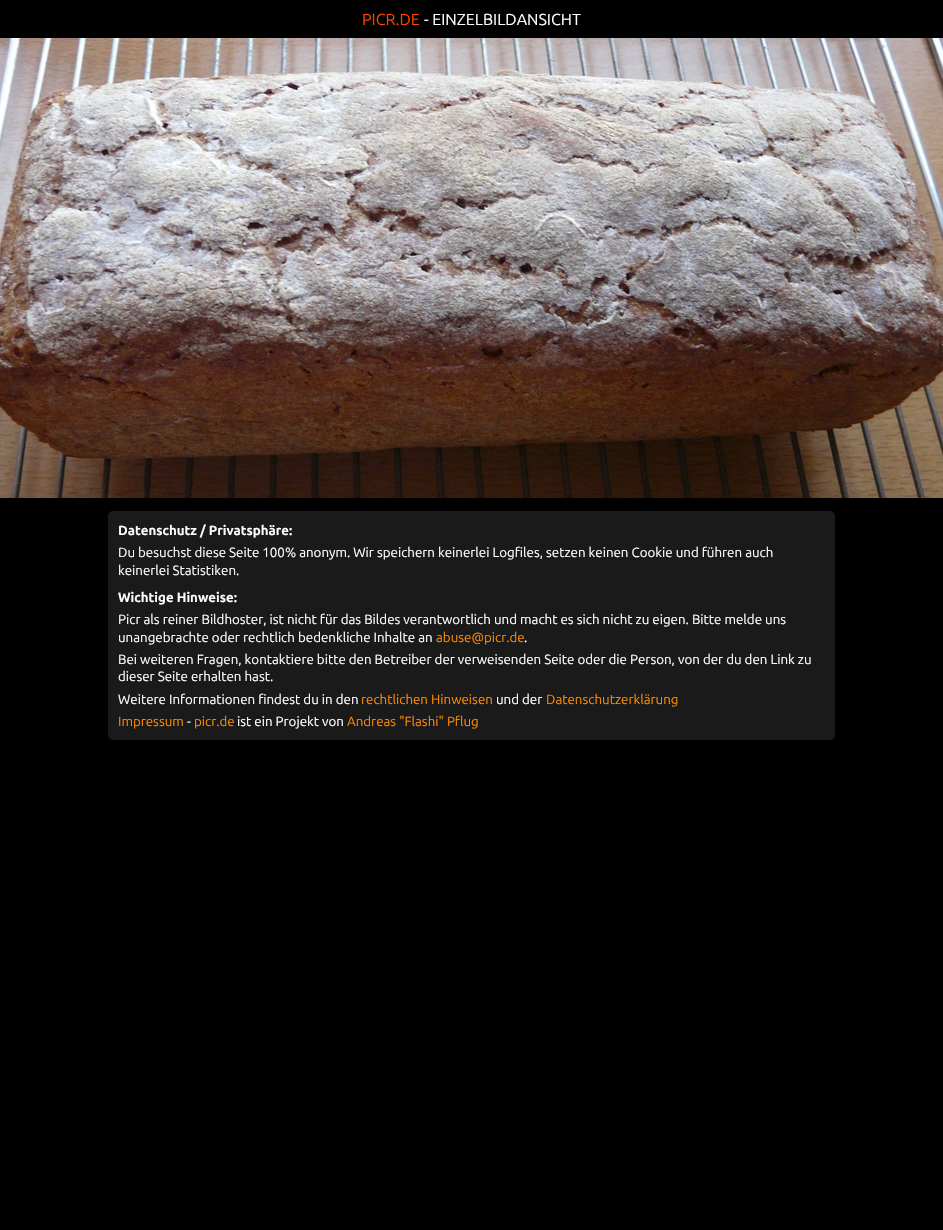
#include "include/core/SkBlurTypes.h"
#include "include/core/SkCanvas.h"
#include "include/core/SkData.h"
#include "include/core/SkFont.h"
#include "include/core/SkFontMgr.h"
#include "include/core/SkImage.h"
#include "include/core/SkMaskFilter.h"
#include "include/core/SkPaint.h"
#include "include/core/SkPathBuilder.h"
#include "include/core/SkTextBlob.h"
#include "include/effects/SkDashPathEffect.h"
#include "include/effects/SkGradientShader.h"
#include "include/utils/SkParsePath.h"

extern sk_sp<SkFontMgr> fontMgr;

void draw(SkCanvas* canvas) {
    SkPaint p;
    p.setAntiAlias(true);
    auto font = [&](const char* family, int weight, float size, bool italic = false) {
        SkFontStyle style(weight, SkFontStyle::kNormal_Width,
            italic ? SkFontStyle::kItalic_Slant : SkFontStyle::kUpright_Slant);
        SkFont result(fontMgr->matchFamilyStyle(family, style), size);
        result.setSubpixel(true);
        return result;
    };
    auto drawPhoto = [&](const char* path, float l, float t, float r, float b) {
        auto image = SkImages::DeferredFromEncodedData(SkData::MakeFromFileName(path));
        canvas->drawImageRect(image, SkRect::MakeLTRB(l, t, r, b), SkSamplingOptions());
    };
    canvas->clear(0xFF000000);
    auto font1 = font("Ubuntu", 400, 16);
    p.setColor(0xFFFF4400);
    canvas->drawString("PICR.DE", 362, 25, font1, p);
    p.setColor(0xFFFFFFFF);
    canvas->drawString("- EINZELBILDANSICHT", 424, 25, font1, p);
    drawPhoto("media/1.png", 0, 38, 943, 498);
    p.setColor(0xFF1A1A1A);
    canvas->drawRoundRect(SkRect::MakeLTRB(108, 511, 835, 740), 5, 5, p);
    auto font2 = font("Ubuntu", 700, 13.33f);
    p.setColor(0xFFFFFFFF);
    canvas->drawString("Datenschutz / Privatsphäre:", 118, 535, font2, p);
    auto font3 = font("Ubuntu", 400, 13.33f);
    canvas->drawString("Du besuchst diese Seite 100% anonym. Wir speichern keinerlei Logfiles, setzen keinen Cookie und führen auch", 118, 557, font3, p);
    canvas->drawString("keinerlei Statistiken.", 118, 575, font3, p);
    canvas->drawString("Wichtige Hinweise:", 118, 602, font2, p);
    canvas->drawString("Picr als reiner Bildhoster, ist nicht für das Bildes verantwortlich und macht es sich nicht zu eigen. Bitte melde uns", 118, 624, font3, p);
    canvas->drawString("unangebrachte oder rechtlich bedenkliche Inhalte an", 118, 642, font3, p);
    p.setColor(0xFFFF8A00);
    canvas->drawString("abuse@picr.de", 436, 642, font3, p);
    p.setColor(0xFFFFFFFF);
    {
        const struct { const char* s; float x, y; } items[] = {
            {".", 524, 642},
            {"Bei weiteren Fragen, kontaktiere bitte den Betreiber der verweisenden Seite oder die Person, von der du den Link zu", 118, 664},
            {"dieser Seite erhalten hast.", 118, 681},
            {"Weitere Informationen findest du in den", 118, 704},
        };
        for (auto [s, x, y] : items) {
            canvas->drawString(s, x, y, font3, p);
        }
    }
    p.setColor(0xFFFF8A00);
    canvas->drawString("rechtlichen Hinweisen", 361, 704, font3, p);
    p.setColor(0xFFFFFFFF);
    canvas->drawString("und der", 496, 704, font3, p);
    p.setColor(0xFFFF8A00);
    canvas->drawString("Datenschutzerklärung", 546, 704, font3, p);
    canvas->drawString("Impressum", 118, 726, font3, p);
    p.setColor(0xFFFFFFFF);
    canvas->drawString("-", 187, 726, font3, p);
    p.setColor(0xFFFF8A00);
    canvas->drawString("picr.de", 194, 726, font3, p);
    p.setColor(0xFFFFFFFF);
    canvas->drawString("ist ein Projekt von", 237, 726, font3, p);
    p.setColor(0xFFFF8A00);
    canvas->drawString("Andreas \"Flashi\" Pflug", 347, 726, font3, p);
}
